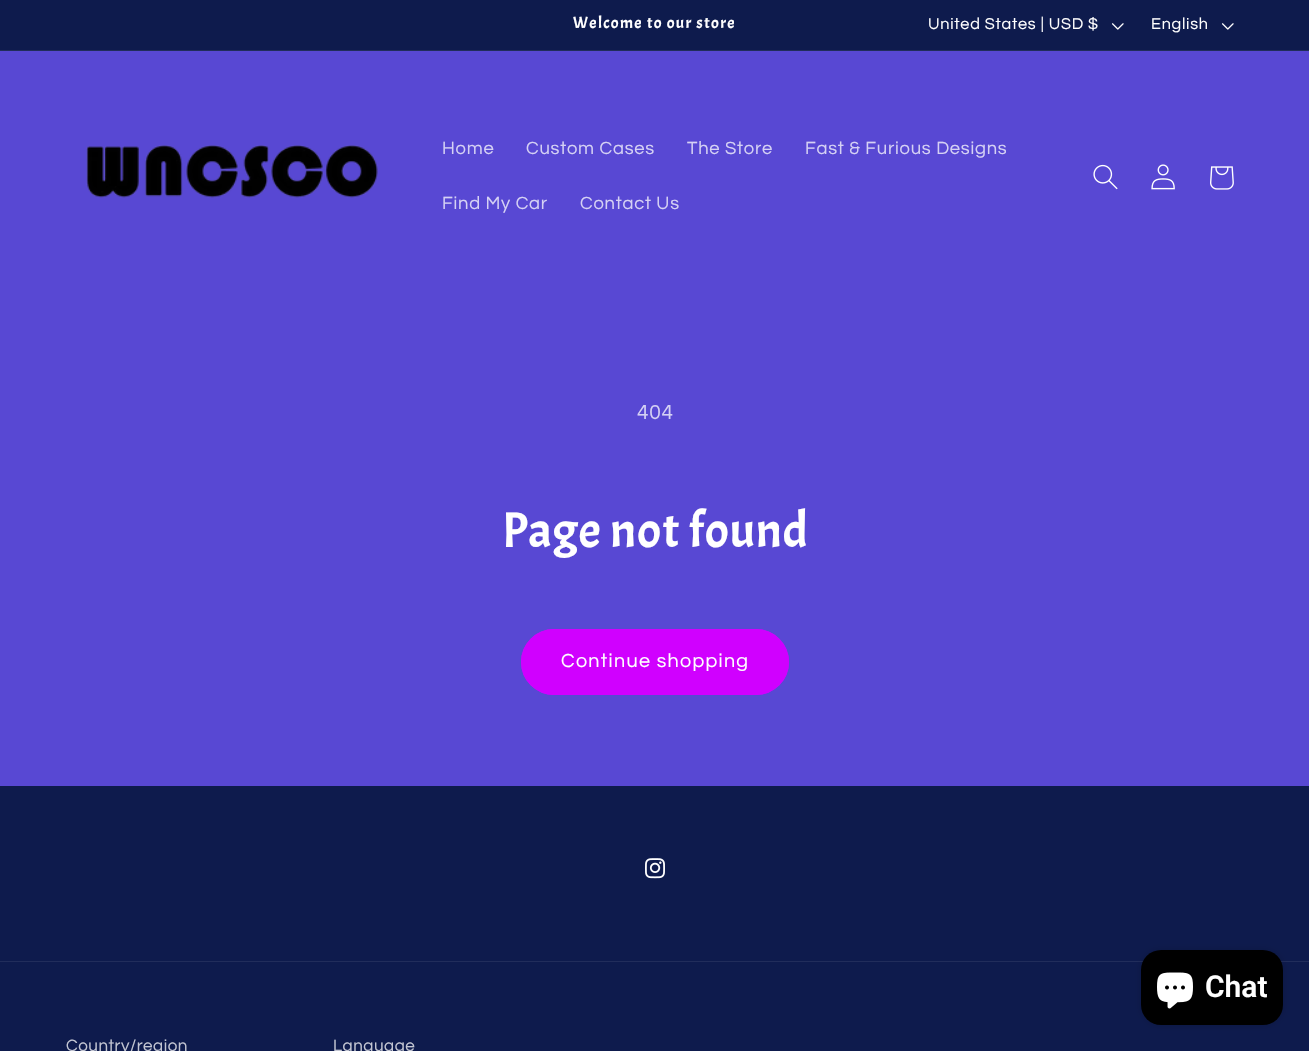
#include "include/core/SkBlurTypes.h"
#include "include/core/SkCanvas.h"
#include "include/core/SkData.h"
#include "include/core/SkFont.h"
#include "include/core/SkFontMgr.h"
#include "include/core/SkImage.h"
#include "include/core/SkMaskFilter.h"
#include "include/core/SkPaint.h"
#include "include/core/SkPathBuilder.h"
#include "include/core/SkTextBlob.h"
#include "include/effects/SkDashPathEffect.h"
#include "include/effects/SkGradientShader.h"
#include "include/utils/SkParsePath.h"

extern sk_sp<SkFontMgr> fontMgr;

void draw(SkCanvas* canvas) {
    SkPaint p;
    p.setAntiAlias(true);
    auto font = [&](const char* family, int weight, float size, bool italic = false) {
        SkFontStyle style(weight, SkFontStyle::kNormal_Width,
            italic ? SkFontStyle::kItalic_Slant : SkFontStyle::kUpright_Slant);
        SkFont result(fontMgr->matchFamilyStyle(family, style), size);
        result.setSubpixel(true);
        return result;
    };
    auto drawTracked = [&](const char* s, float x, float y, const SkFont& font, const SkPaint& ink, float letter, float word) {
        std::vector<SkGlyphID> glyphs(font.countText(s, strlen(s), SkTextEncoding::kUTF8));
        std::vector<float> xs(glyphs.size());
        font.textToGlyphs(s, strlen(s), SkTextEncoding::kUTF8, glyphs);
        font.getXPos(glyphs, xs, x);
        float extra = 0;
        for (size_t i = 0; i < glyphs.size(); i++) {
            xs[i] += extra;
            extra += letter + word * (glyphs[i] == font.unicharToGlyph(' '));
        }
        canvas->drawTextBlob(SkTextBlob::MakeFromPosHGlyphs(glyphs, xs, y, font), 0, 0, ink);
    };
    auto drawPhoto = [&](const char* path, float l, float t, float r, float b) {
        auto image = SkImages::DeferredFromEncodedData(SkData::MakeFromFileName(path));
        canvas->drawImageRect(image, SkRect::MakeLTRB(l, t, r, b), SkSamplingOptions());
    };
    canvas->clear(0xFF5848D3);
    p.setColor(0xFF0E1B4D);
    canvas->drawRect(SkRect::MakeLTRB(0, 0, 1309, 50), p);
    p.setColor(0xFF212D5B);
    canvas->drawRect(SkRect::MakeLTRB(0, 50, 1309, 51), p);
    auto font1 = font("Acme", 400, 16.25f);
    p.setColor(0xFFFFFFFF);
    drawTracked("Welcome to our store", 573, 28, font1, p, 1.3f, 0);
    auto font2 = font("Questrial", 400, 16.25f);
    drawTracked("United States | USD $", 928, 29, font2, p, 0.75f, 0);
    drawPhoto("media/1.png", 1111, 23, 1124, 30);
    drawTracked("English", 1151, 29, font2, p, 0.75f, 0);
    drawPhoto("media/1.png", 1221, 23, 1234, 30);
    drawPhoto("media/2.png", 86, 145, 378, 198);
    auto font3 = font("Questrial", 400, 18.4f);
    p.setColor(0xFFD5D1F4);
    {
        const struct { const char* s; float x, y; } items[] = {
            {"Home", 442, 154},
            {"Custom Cases", 526, 154},
            {"The Store", 687, 154},
            {"Fast & Furious Designs", 805, 154},
            {"Find My Car", 442, 209},
            {"Contact Us", 580, 209},
        };
        for (auto [s, x, y] : items) {
            drawTracked(s, x, y, font3, p, 0.75f, 0);
        }
    }
    drawPhoto("media/3.png", 1093, 164, 1118, 190);
    drawPhoto("media/4.png", 1151, 164, 1175, 190);
    drawPhoto("media/5.png", 1210, 166, 1234, 190);
    auto font4 = font("Questrial", 400, 21);
    drawTracked("404", 637, 419, font4, p, 0.75f, 0);
    auto font5 = font("Acme", 400, 50);
    p.setColor(0xFFFFFFFF);
    drawTracked("Page not found", 502, 547, font5, p, 0.75f, 0);
    p.setColor(0xFFD000FF);
    canvas->drawRoundRect(SkRect::MakeLTRB(521, 629, 789, 695), 33, 33, p);
    p.setStyle(SkPaint::kStroke_Style);
    p.setStrokeWidth(4);
    canvas->drawRoundRect(SkRect::MakeLTRB(523, 631, 787, 693), 31, 31, p);
    auto font6 = font("Questrial", 400, 19.75f);
    p.setStyle(SkPaint::kFill_Style);
    p.setColor(0xFFFFFFFF);
    drawTracked("Continue shopping", 561, 667, font6, p, 1.3f, 0);
    p.setColor(0xFF0E1B4D);
    canvas->drawRect(SkRect::MakeLTRB(0, 786, 1309, 1051), p);
    p.setColor(0xFF212D5B);
    canvas->drawRect(SkRect::MakeLTRB(0, 961, 1309, 962), p);
    p.setColor(0x26000000);
    p.setMaskFilter(SkMaskFilter::MakeBlur(kNormal_SkBlurStyle, 3));
    canvas->drawRoundRect(SkRect::MakeLTRB(1141, 950, 1283, 1025), 20, 20, p);
    p.setMaskFilter(nullptr);
    p.setColor(0xFF000000);
    canvas->drawRoundRect(SkRect::MakeLTRB(1141, 950, 1283, 1025), 20, 20, p);
    drawPhoto("media/6.png", 1157, 972, 1193, 1009);
    auto font7 = font("Roboto", 600, 30);
    p.setColor(0xFFFFFFFF);
    canvas->drawString("Chat", 1205, 997, font7, p);
    drawPhoto("media/7.png", 645, 858, 665, 879);
    auto font8 = font("Questrial", 400, 17);
    p.setColor(0xFFC3C6D3);
    drawTracked("Country/region", 66, 1051, font8, p, 0.5f, 0);
    drawTracked("Language", 333, 1051, font8, p, 0.5f, 0);
}
